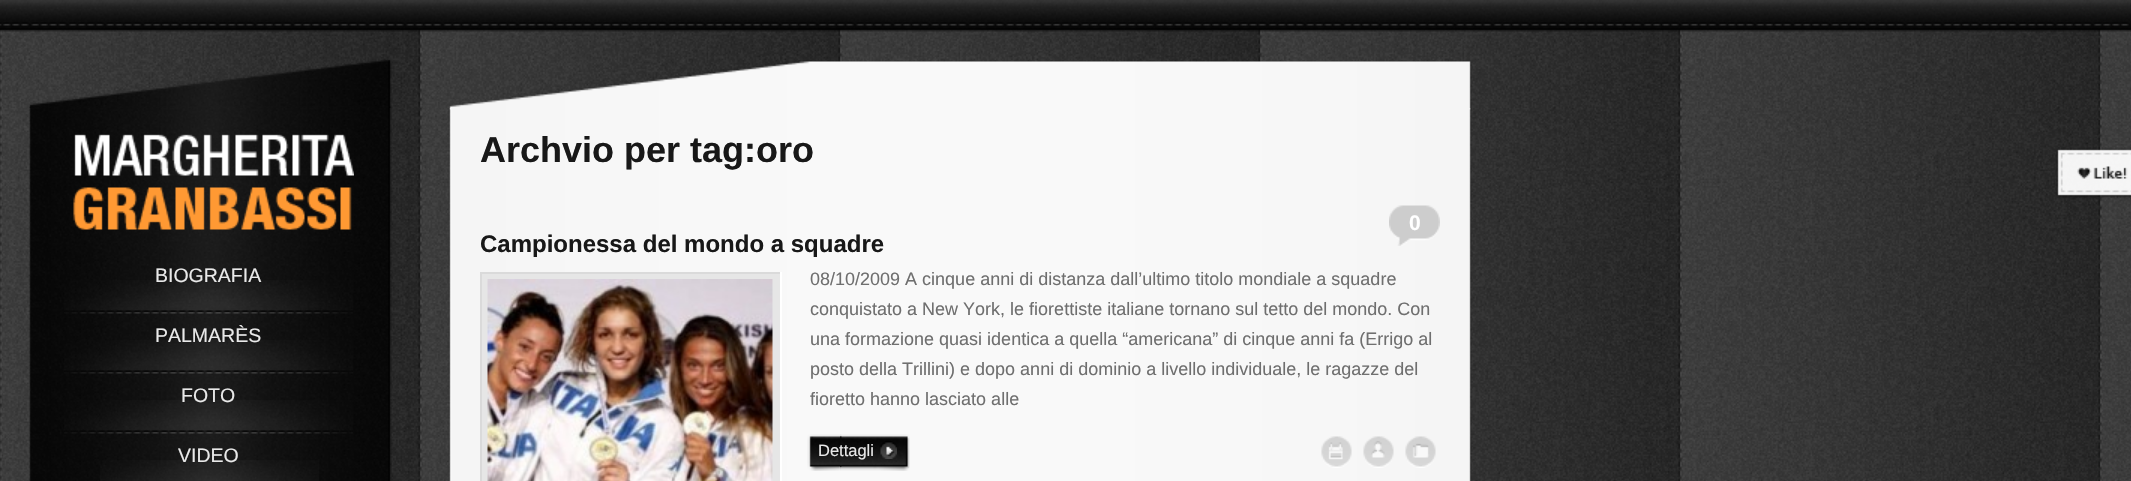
#include "include/core/SkBlurTypes.h"
#include "include/core/SkCanvas.h"
#include "include/core/SkData.h"
#include "include/core/SkFont.h"
#include "include/core/SkFontMgr.h"
#include "include/core/SkImage.h"
#include "include/core/SkMaskFilter.h"
#include "include/core/SkPaint.h"
#include "include/core/SkPathBuilder.h"
#include "include/core/SkTextBlob.h"
#include "include/effects/SkDashPathEffect.h"
#include "include/effects/SkGradientShader.h"
#include "include/utils/SkParsePath.h"

extern sk_sp<SkFontMgr> fontMgr;

void draw(SkCanvas* canvas) {
    SkPaint p;
    p.setAntiAlias(true);
    auto font = [&](const char* family, int weight, float size, bool italic = false) {
        SkFontStyle style(weight, SkFontStyle::kNormal_Width,
            italic ? SkFontStyle::kItalic_Slant : SkFontStyle::kUpright_Slant);
        SkFont result(fontMgr->matchFamilyStyle(family, style), size);
        result.setSubpixel(true);
        return result;
    };
    auto drawPhoto = [&](const char* path, float l, float t, float r, float b) {
        auto image = SkImages::DeferredFromEncodedData(SkData::MakeFromFileName(path));
        canvas->drawImageRect(image, SkRect::MakeLTRB(l, t, r, b), SkSamplingOptions());
    };
    canvas->clear(0xFFFFFFFF);
    drawPhoto("media/1.png", 0, 29, 2131, 481);
    drawPhoto("media/2.png", 0, 29, 2131, 481);
    drawPhoto("media/3.png", 0, 0, 2131, 32);
    drawPhoto("media/4.png", 29, 59, 392, 108);
    drawPhoto("media/5.png", 29, 106, 392, 481);
    drawPhoto("media/6.png", 73, 134, 354, 230);
    drawPhoto("media/7.png", 64, 280, 353, 314);
    auto font1 = font("Liberation Sans", 400, 19.5f);
    p.setColor(0xFFE9E9E9);
    canvas->drawString("BIOGRAFIA", 155, 282, font1, p);
    drawPhoto("media/8.png", 64, 340, 353, 374);
    canvas->drawString("PALMARÈS", 155, 342, font1, p);
    drawPhoto("media/9.png", 64, 400, 353, 434);
    canvas->drawString("FOTO", 181, 402, font1, p);
    drawPhoto("media/10.png", 100, 460, 319, 481);
    canvas->drawString("VIDEO", 178, 462, font1, p);
    drawPhoto("media/12.png", 448, 108, 1472, 481);
    drawPhoto("media/11.png", 449, 60, 1472, 110);
    auto font2 = font("Liberation Sans", 700, 36);
    p.setColor(0xFF181818);
    canvas->drawString("Archvio per tag:oro", 480, 162, font2, p);
    drawPhoto("media/13.png", 1389, 205, 1440, 246);
    auto font3 = font("Liberation Sans", 700, 21);
    p.setColor(0xFFFFFFFF);
    canvas->drawString("0", 1409, 230, font3, p);
    auto font4 = font("Liberation Sans", 700, 24);
    p.setColor(0xFF181818);
    canvas->drawString("Campionessa del mondo a squadre", 480, 252, font4, p);
    {
        const struct { float l, t, r, b; SkColor color; } items[] = {
            {482, 274, 780, 481, 0xFFE6E6E6},
            {480, 272, 782, 274, 0xFFDADADA},
            {780, 272, 782, 481, 0xFFFFFFFF},
            {480, 272, 482, 481, 0xFFDADADA},
        };
        for (auto [l, t, r, b, color] : items) {
            p.setColor(color);
            canvas->drawRect(SkRect::MakeLTRB(l, t, r, b), p);
        }
    }
    drawPhoto("media/14.png", 487, 279, 773, 481);
    auto font5 = font("Liberation Sans", 400, 18);
    p.setColor(0xFF6F6F6F);
    {
        const struct { const char* s; float x, y; } items[] = {
            {"08/10/2009 A cinque anni di distanza dall’ultimo titolo mondiale a squadre", 810, 285},
            {"conquistato a New York, le fiorettiste italiane tornano sul tetto del mondo. Con", 810, 315},
            {"una formazione quasi identica a quella “americana” di cinque anni fa (Errigo al", 810, 345},
            {"posto della Trillini) e dopo anni di dominio a livello individuale, le ragazze del", 810, 375},
            {"fioretto hanno lasciato alle", 810, 405},
        };
        for (auto [s, x, y] : items) {
            canvas->drawString(s, x, y, font5, p);
        }
    }
    drawPhoto("media/15.png", 807, 434, 842, 471);
    drawPhoto("media/16.png", 840, 434, 910, 471);
    auto font6 = font("Liberation Sans", 400, 16.5f);
    p.setColor(0xFFE9E9E9);
    canvas->drawString("Dettagli", 818, 456, font6, p);
    drawPhoto("media/17.png", 880, 441, 897, 459);
    drawPhoto("media/18.png", 1321, 436, 1352, 468);
    drawPhoto("media/19.png", 1363, 436, 1394, 468);
    drawPhoto("media/20.png", 1405, 436, 1436, 468);
    drawPhoto("media/21.png", 2056, 147, 2131, 199);
    drawPhoto("media/22.png", 2077, 166, 2128, 179);
}
